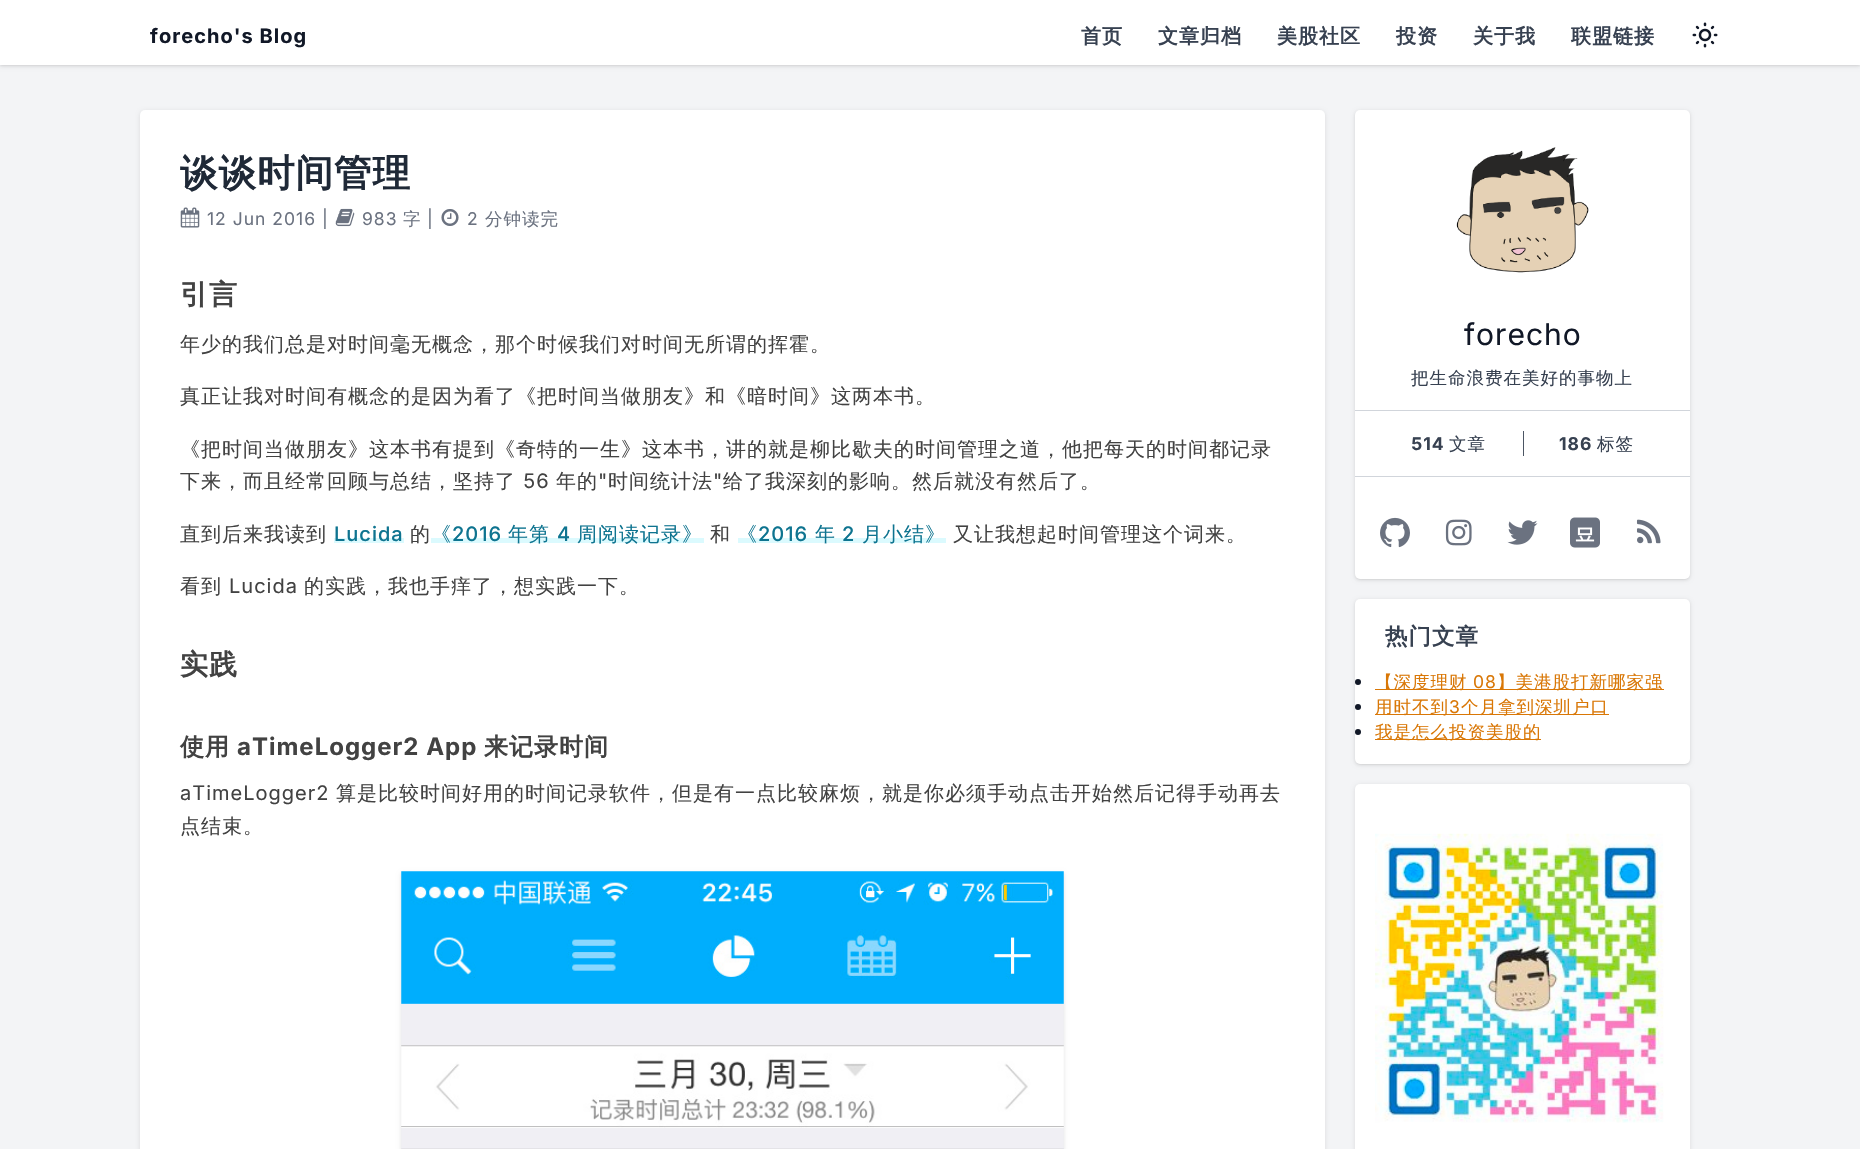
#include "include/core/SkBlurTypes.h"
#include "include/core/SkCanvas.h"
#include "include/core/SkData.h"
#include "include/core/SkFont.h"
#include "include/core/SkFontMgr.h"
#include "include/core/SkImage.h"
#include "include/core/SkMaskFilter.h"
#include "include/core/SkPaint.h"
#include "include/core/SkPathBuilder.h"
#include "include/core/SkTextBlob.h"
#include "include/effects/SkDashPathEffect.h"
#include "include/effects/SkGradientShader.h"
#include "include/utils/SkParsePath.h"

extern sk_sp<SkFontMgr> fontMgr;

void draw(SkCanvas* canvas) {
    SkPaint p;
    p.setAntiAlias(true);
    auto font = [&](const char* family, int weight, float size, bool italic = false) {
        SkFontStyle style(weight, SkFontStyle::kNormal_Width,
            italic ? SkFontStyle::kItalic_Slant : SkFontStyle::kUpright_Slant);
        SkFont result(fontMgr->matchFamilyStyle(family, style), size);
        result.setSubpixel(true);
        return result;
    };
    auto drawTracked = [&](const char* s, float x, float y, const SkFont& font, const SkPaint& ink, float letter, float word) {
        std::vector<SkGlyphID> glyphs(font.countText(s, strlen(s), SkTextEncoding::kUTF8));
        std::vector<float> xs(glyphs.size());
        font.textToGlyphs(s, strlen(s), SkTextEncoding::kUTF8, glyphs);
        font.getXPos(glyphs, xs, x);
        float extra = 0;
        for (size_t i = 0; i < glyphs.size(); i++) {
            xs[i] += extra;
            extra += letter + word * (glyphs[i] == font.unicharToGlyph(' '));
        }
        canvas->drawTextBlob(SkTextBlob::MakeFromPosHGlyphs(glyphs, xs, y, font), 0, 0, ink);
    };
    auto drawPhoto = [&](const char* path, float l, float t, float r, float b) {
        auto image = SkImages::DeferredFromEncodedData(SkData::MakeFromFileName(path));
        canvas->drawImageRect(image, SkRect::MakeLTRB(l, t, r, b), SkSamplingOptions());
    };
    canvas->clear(0xFFF3F4F6);
    p.setColor(0x0F000000);
    p.setMaskFilter(SkMaskFilter::MakeBlur(kNormal_SkBlurStyle, 1));
    canvas->drawRect(SkRect::MakeLTRB(0, 1, 1860, 66), p);
    p.setMaskFilter(nullptr);
    p.setColor(0x1A000000);
    p.setMaskFilter(SkMaskFilter::MakeBlur(kNormal_SkBlurStyle, 2));
    canvas->drawRect(SkRect::MakeLTRB(0, 1, 1860, 66), p);
    p.setMaskFilter(nullptr);
    p.setColor(0xFFFFFFFF);
    canvas->drawRect(SkRect::MakeLTRB(0, 0, 1860, 65), p);
    auto font1 = font("Inter", 700, 20);
    p.setColor(0xFF111827);
    drawTracked("forecho's Blog", 150, 43, font1, p, 1, 0);
    auto font2 = font("WenQuanYi Zen Hei", 700, 20);
    p.setColor(0xFF374151);
    {
        const struct { const char* s; float x, y; } items[] = {
            {"首页", 1081, 43},
            {"文章归档", 1158, 43},
            {"美股社区", 1277, 43},
            {"投资", 1396, 43},
            {"关于我", 1473, 43},
            {"联盟链接", 1571, 43},
        };
        for (auto [s, x, y] : items) {
            drawTracked(s, x, y, font2, p, 1, 0);
        }
    }
    drawPhoto("media/1.png", 1692, 22, 1718, 48);
    p.setColor(0x1A000000);
    p.setMaskFilter(SkMaskFilter::MakeBlur(kNormal_SkBlurStyle, 2));
    canvas->drawRoundRect(SkRect::MakeLTRB(140, 111, 1325, 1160), 5, 5, p);
    p.setMaskFilter(nullptr);
    p.setColor(0xFFFFFFFF);
    canvas->drawRoundRect(SkRect::MakeLTRB(140, 110, 1325, 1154), 5, 5, p);
    auto font3 = font("WenQuanYi Zen Hei", 700, 37.5f);
    p.setColor(0xFF1F2937);
    drawTracked("谈谈时间管理", 180, 186, font3, p, 1, 0);
    drawPhoto("media/2.png", 180, 207, 200, 228);
    auto font4 = font("Inter", 400, 17.5f);
    p.setColor(0xFF6B7280);
    drawTracked("12 Jun 2016 |", 207, 225, font4, p, 1, 0);
    drawPhoto("media/3.png", 335, 208, 355, 227);
    drawTracked("983", 362, 225, font4, p, 1, 0);
    auto font5 = font("WenQuanYi Zen Hei", 500, 17.5f);
    drawTracked("字", 403, 225, font5, p, 1, 0);
    drawTracked("|", 427, 225, font4, p, 1, 0);
    drawPhoto("media/4.png", 441, 209, 459, 226);
    drawTracked("2", 467, 225, font4, p, 1, 0);
    drawTracked("分钟读完", 485, 225, font5, p, 1, 0);
    auto font6 = font("WenQuanYi Zen Hei", 700, 28);
    p.setColor(0xFF424242);
    drawTracked("引言", 180, 304, font6, p, 1, 0);
    auto font7 = font("WenQuanYi Zen Hei", 500, 20);
    {
        const struct { const char* s; float x, y; } items[] = {
            {"年少的我们总是对时间毫无概念，那个时候我们对时间无所谓的挥霍。", 180, 351},
            {"真正让我对时间有概念的是因为看了《把时间当做朋友》和《暗时间》这两本书。", 180, 403},
            {"《把时间当做朋友》这本书有提到《奇特的一生》这本书，讲的就是柳比歇夫的时间管理之道，他把每天的时间都记录", 180, 456},
            {"下来，而且经常回顾与总结，坚持了", 180, 488},
        };
        for (auto [s, x, y] : items) {
            drawTracked(s, x, y, font7, p, 1, 0);
        }
    }
    auto font8 = font("Inter", 400, 20);
    drawTracked("56", 523, 488, font8, p, 1, 0);
    drawTracked("年的", 556, 488, font7, p, 1, 0);
    drawTracked("\"", 598, 488, font8, p, 1, 0);
    drawTracked("时间统计法", 608, 488, font7, p, 1, 0);
    drawTracked("\"", 713, 488, font8, p, 1, 0);
    drawTracked("给了我深刻的影响。然后就没有然后了。", 723, 488, font7, p, 1, 0);
    drawTracked("直到后来我读到", 180, 541, font7, p, 1, 0);
    p.setColor(0xFFDBFAFE);
    canvas->drawRect(SkRect::MakeLTRB(334, 538, 404, 543), p);
    auto font9 = font("Inter", 500, 20);
    p.setColor(0xFF0E7490);
    drawTracked("Lucida", 334, 541, font9, p, 1, 0);
    p.setColor(0xFF424242);
    drawTracked("的", 410, 541, font7, p, 1, 0);
    p.setColor(0xFFDBFAFE);
    canvas->drawRect(SkRect::MakeLTRB(431, 538, 704, 543), p);
    p.setColor(0xFF0E7490);
    drawTracked("《", 431, 541, font7, p, 1, 0);
    drawTracked("2016", 452, 541, font9, p, 1, 0);
    drawTracked("年第", 508, 541, font7, p, 1, 0);
    drawTracked("4", 557, 541, font9, p, 1, 0);
    drawTracked("周阅读记录》", 577, 541, font7, p, 1, 0);
    p.setColor(0xFF424242);
    drawTracked("和", 710, 541, font7, p, 1, 0);
    p.setColor(0xFFDBFAFE);
    canvas->drawRect(SkRect::MakeLTRB(738, 538, 946, 543), p);
    p.setColor(0xFF0E7490);
    drawTracked("《", 737, 541, font7, p, 1, 0);
    drawTracked("2016", 758, 541, font9, p, 1, 0);
    drawTracked("年", 815, 541, font7, p, 1, 0);
    drawTracked("2", 842, 541, font9, p, 1, 0);
    drawTracked("月小结》", 862, 541, font7, p, 1, 0);
    p.setColor(0xFF424242);
    drawTracked("又让我想起时间管理这个词来。", 953, 541, font7, p, 1, 0);
    drawTracked("看到", 180, 593, font7, p, 1, 0);
    drawTracked("Lucida", 229, 593, font8, p, 1, 0);
    drawTracked("的实践，我也手痒了，想实践一下。", 304, 593, font7, p, 1, 0);
    drawTracked("实践", 180, 674, font6, p, 1, 0);
    auto font10 = font("WenQuanYi Zen Hei", 700, 24);
    drawTracked("使用", 180, 755, font10, p, 1, 0);
    auto font11 = font("Inter", 700, 24);
    drawTracked("aTimeLogger2 App", 237, 755, font11, p, 1, 0);
    drawTracked("来记录时间", 484, 755, font10, p, 1, 0);
    drawTracked("aTimeLogger2", 180, 800, font8, p, 1, 0);
    drawTracked("算是比较时间好用的时间记录软件，但是有一点比较麻烦，就是你必须手动点击开始然后记得手动再去", 336, 800, font7, p, 1, 0);
    drawTracked("点结束。", 180, 833, font7, p, 1, 0);
    p.setColor(0x1A000000);
    p.setMaskFilter(SkMaskFilter::MakeBlur(kNormal_SkBlurStyle, 2));
    canvas->drawRect(SkRect::MakeLTRB(401, 873, 1064, 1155), p);
    p.setMaskFilter(nullptr);
    drawPhoto("media/5.png", 401, 871, 1064, 1149);
    p.setColor(0x0F000000);
    p.setMaskFilter(SkMaskFilter::MakeBlur(kNormal_SkBlurStyle, 1));
    canvas->drawRoundRect(SkRect::MakeLTRB(1355, 111, 1690, 580), 5, 5, p);
    p.setMaskFilter(nullptr);
    p.setColor(0x1A000000);
    p.setMaskFilter(SkMaskFilter::MakeBlur(kNormal_SkBlurStyle, 2));
    canvas->drawRoundRect(SkRect::MakeLTRB(1355, 111, 1690, 580), 5, 5, p);
    p.setMaskFilter(nullptr);
    p.setColor(0xFFFFFFFF);
    canvas->drawRoundRect(SkRect::MakeLTRB(1355, 110, 1690, 579), 5, 5, p);
    drawPhoto("media/6.png", 1456, 147, 1589, 273);
    auto font12 = font("Inter", 400, 30);
    p.setColor(0xFF111827);
    drawTracked("forecho", 1464, 345, font12, p, 1, 0);
    p.setColor(0xFF374151);
    drawTracked("把生命浪费在美好的事物上", 1411, 384, font5, p, 1, 0);
    p.setColor(0xFFD1D5DB);
    canvas->drawRect(SkRect::MakeLTRB(1355, 410, 1690, 411), p);
    p.setColor(0xFF4B5563);
    canvas->drawRect(SkRect::MakeLTRB(1523, 431, 1524, 456), p);
    auto font13 = font("Inter", 700, 17.5f);
    p.setColor(0xFF374151);
    drawTracked("514", 1411, 450, font13, p, 1, 0);
    drawTracked("文章", 1449, 450, font5, p, 1, 0);
    drawTracked("186", 1559, 450, font13, p, 1, 0);
    drawTracked("标签", 1597, 450, font5, p, 1, 0);
    p.setColor(0xFFD1D5DB);
    canvas->drawRect(SkRect::MakeLTRB(1355, 476, 1690, 477), p);
    drawPhoto("media/7.png", 1380, 517, 1410, 548);
    drawPhoto("media/8.png", 1445, 519, 1472, 546);
    drawPhoto("media/9.png", 1507, 520, 1538, 545);
    drawPhoto("media/10.png", 1570, 517, 1600, 548);
    drawPhoto("media/11.png", 1636, 519, 1661, 544);
    p.setColor(0x0F000000);
    p.setMaskFilter(SkMaskFilter::MakeBlur(kNormal_SkBlurStyle, 1));
    canvas->drawRoundRect(SkRect::MakeLTRB(1355, 600, 1690, 765), 5, 5, p);
    p.setMaskFilter(nullptr);
    p.setColor(0x1A000000);
    p.setMaskFilter(SkMaskFilter::MakeBlur(kNormal_SkBlurStyle, 2));
    canvas->drawRoundRect(SkRect::MakeLTRB(1355, 600, 1690, 765), 5, 5, p);
    p.setMaskFilter(nullptr);
    p.setColor(0xFFFFFFFF);
    canvas->drawRoundRect(SkRect::MakeLTRB(1355, 599, 1690, 764), 5, 5, p);
    auto font14 = font("WenQuanYi Zen Hei", 700, 22.5f);
    p.setColor(0xFF374151);
    drawTracked("热门文章", 1385, 644, font14, p, 1, 0);
    p.setColor(0xFF111827);
    canvas->drawCircle(1358, 682, 3, p);
    p.setColor(0xFFD97706);
    canvas->drawRect(SkRect::MakeLTRB(1375, 689, 1664, 690), p);
    drawTracked("【深度理财", 1375, 688, font5, p, 1, 0);
    drawTracked("08", 1473, 688, font4, p, 1, 0);
    drawTracked("】美港股打新哪家强", 1497, 688, font5, p, 1, 0);
    p.setColor(0xFF111827);
    canvas->drawCircle(1358, 707, 3, p);
    p.setColor(0xFFD97706);
    canvas->drawRect(SkRect::MakeLTRB(1375, 714, 1609, 715), p);
    drawTracked("用时不到", 1375, 713, font5, p, 1, 0);
    drawTracked("3", 1449, 713, font4, p, 1, 0);
    drawTracked("个月拿到深圳户口", 1461, 713, font5, p, 1, 0);
    p.setColor(0xFF111827);
    canvas->drawCircle(1358, 732, 3, p);
    p.setColor(0xFFD97706);
    canvas->drawRect(SkRect::MakeLTRB(1375, 739, 1541, 740), p);
    drawTracked("我是怎么投资美股的", 1375, 738, font5, p, 1, 0);
    p.setColor(0x1A000000);
    p.setMaskFilter(SkMaskFilter::MakeBlur(kNormal_SkBlurStyle, 2));
    canvas->drawRoundRect(SkRect::MakeLTRB(1355, 785, 1690, 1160), 5, 5, p);
    p.setMaskFilter(nullptr);
    p.setColor(0xFFFFFFFF);
    canvas->drawRoundRect(SkRect::MakeLTRB(1355, 784, 1690, 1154), 5, 5, p);
    drawPhoto("media/12.png", 1375, 833, 1664, 1123);
}
